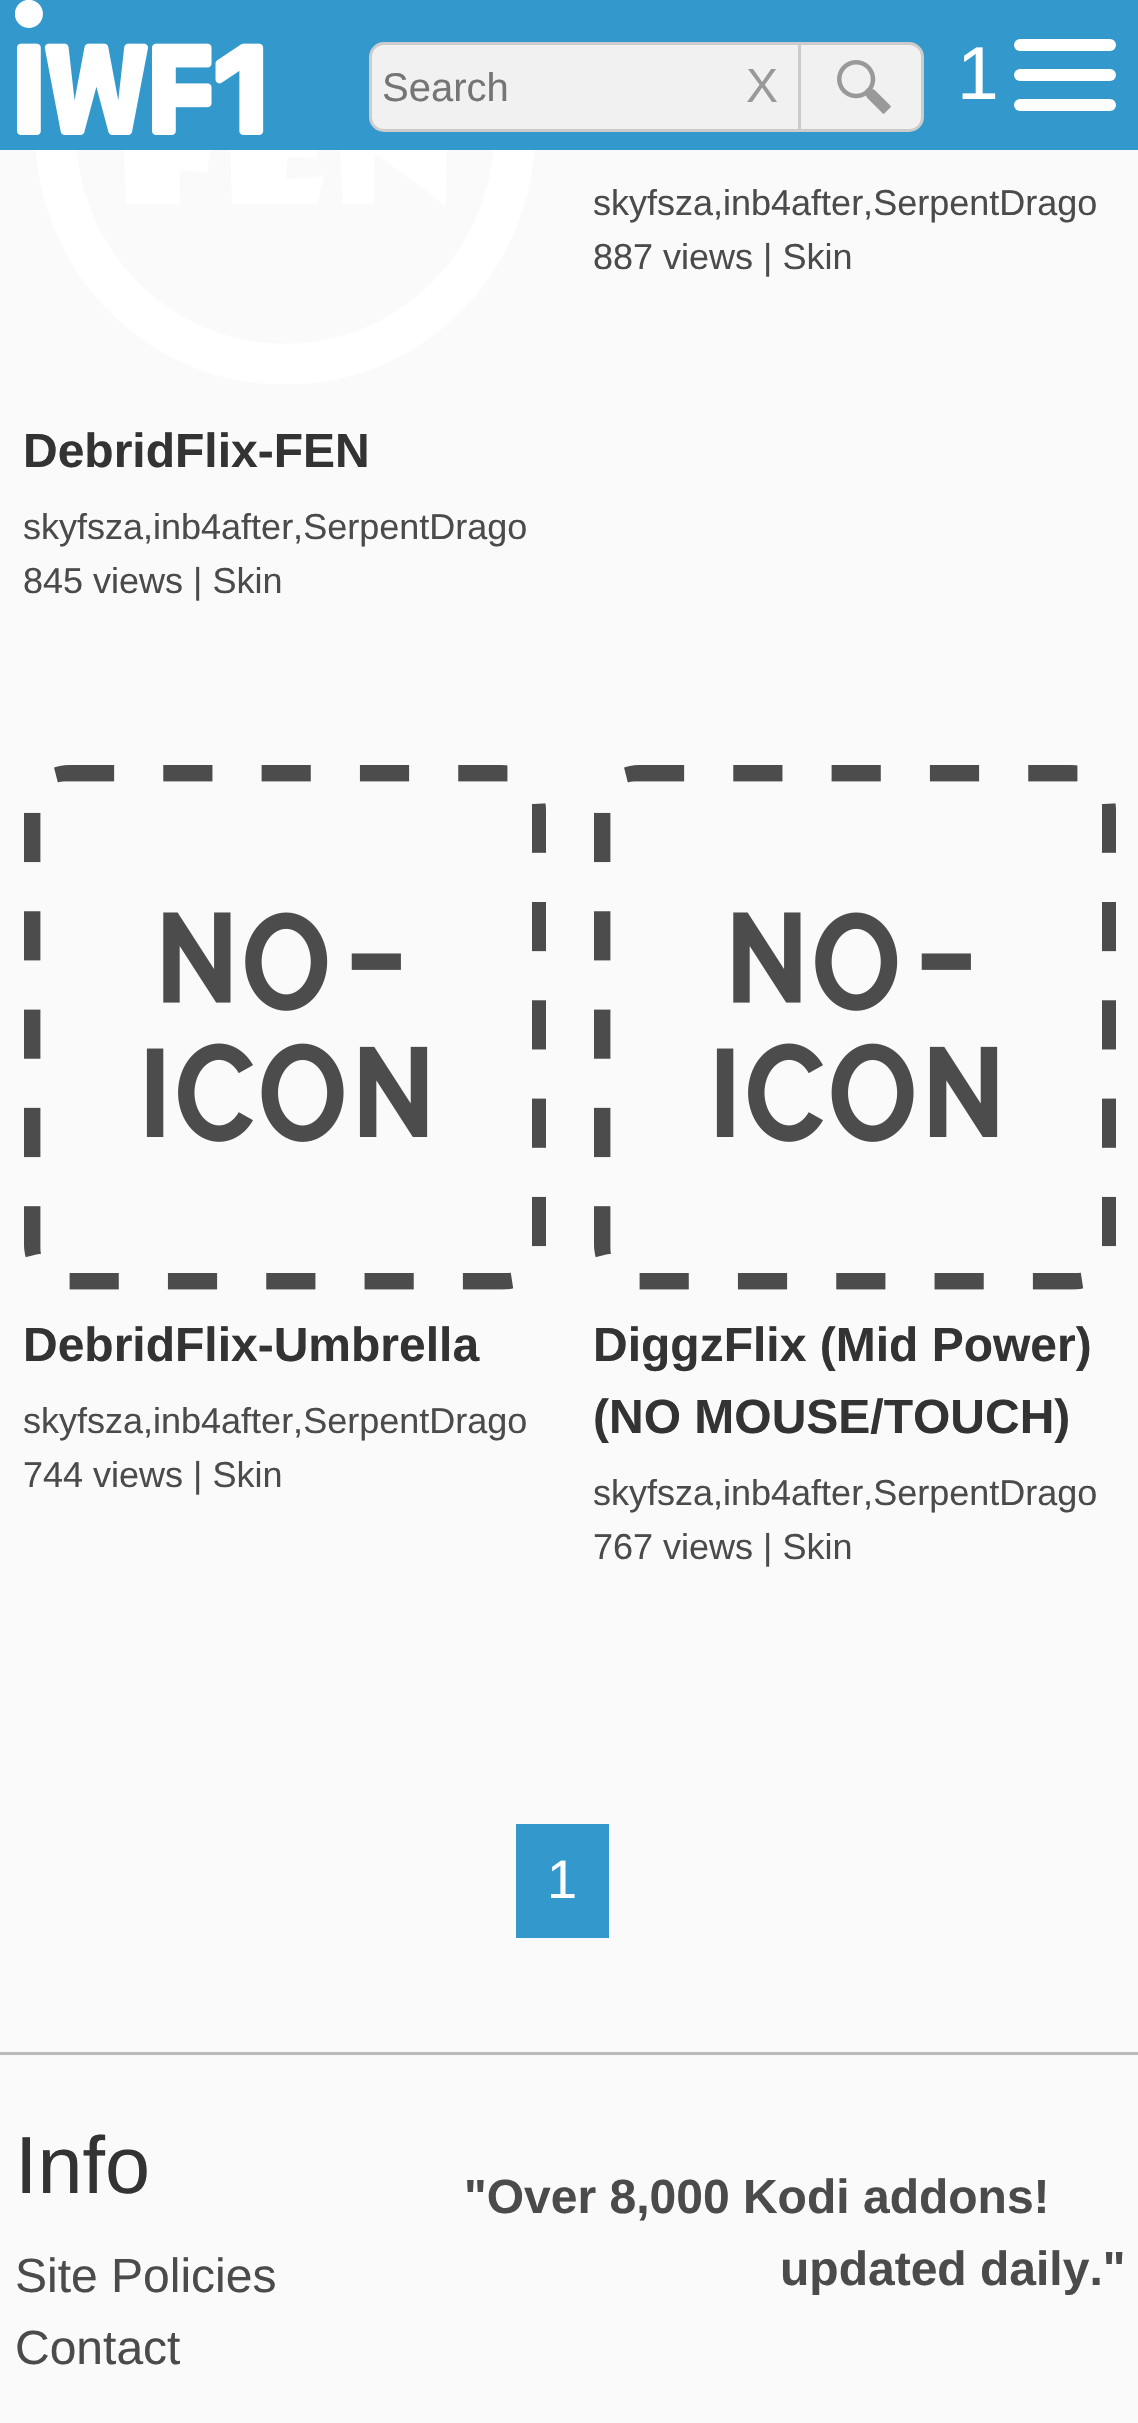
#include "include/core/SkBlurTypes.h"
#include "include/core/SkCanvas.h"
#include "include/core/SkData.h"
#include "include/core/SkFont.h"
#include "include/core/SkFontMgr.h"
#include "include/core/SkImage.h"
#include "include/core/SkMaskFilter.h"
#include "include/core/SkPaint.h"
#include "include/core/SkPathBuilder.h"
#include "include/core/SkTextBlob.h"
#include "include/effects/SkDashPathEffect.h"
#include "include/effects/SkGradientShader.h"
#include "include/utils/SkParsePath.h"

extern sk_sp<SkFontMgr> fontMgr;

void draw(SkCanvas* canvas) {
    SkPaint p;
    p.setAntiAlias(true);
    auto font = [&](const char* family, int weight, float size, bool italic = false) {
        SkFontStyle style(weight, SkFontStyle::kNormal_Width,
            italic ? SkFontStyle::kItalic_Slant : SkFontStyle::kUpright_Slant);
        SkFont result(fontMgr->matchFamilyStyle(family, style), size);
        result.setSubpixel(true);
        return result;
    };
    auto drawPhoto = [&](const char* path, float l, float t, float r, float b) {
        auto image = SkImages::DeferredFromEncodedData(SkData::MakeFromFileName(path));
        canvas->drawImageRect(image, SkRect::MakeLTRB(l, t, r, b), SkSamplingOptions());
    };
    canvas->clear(0xFFFAFAFA);
    p.setColor(0xFF3399CC);
    canvas->drawRect(SkRect::MakeLTRB(0, 0, 1138, 150), p);
    drawPhoto("media/1.png", 15, 0, 264, 135);
    p.setColor(0xFFF1F1F1);
    canvas->drawRoundRect(SkRect::MakeLTRB(370.5f, 43.5f, 922.5f, 130.5f), 13.5f, 13.5f, p);
    p.setStyle(SkPaint::kStroke_Style);
    p.setStrokeWidth(3);
    p.setColor(0xFFCCCCCC);
    canvas->drawRoundRect(SkRect::MakeLTRB(370.5f, 43.5f, 922.5f, 130.5f), 13.5f, 13.5f, p);
    auto font1 = font("Liberation Sans", 400, 40);
    p.setStyle(SkPaint::kFill_Style);
    p.setColor(0xFF757575);
    canvas->drawString("Search", 382, 101, font1, p);
    auto font2 = font("Liberation Sans", 400, 48);
    p.setColor(0xFF999999);
    canvas->drawString("X", 746, 102, font2, p);
    p.setColor(0xFFCCCCCC);
    canvas->drawRect(SkRect::MakeLTRB(798, 42, 801, 132), p);
    drawPhoto("media/2.png", 837, 60, 891, 114);
    p.setStyle(SkPaint::kStroke_Style);
    p.setStrokeWidth(12);
    p.setStrokeCap(SkPaint::kRound_Cap);
    p.setColor(0xFFFFFFFF);
    canvas->drawPath(SkPathBuilder().moveTo(1020, 45).lineTo(1110, 45).detach(), p);
    auto font3 = font("Liberation Sans", 400, 75);
    p.setStyle(SkPaint::kFill_Style);
    canvas->drawString("1", 957, 99, font3, p);
    p.setStyle(SkPaint::kStroke_Style);
    canvas->drawPath(SkPathBuilder().moveTo(1020, 75).lineTo(1110, 75).detach(), p);
    canvas->drawPath(SkPathBuilder().moveTo(1020, 105).lineTo(1110, 105).detach(), p);
    auto font4 = font("Liberation Sans", 400, 36);
    p.setStyle(SkPaint::kFill_Style);
    p.setColor(0xFF4B4B4B);
    canvas->drawString("skyfsza,inb4after,SerpentDrago", 593, 215, font4, p);
    canvas->drawString("887 views | Skin", 593, 269, font4, p);
    drawPhoto("media/3.png", 36, 150, 535, 384);
    auto font5 = font("Liberation Sans", 700, 48);
    p.setColor(0xFF333333);
    canvas->drawString("DebridFlix-FEN", 23, 467, font5, p);
    p.setColor(0xFF4B4B4B);
    canvas->drawString("skyfsza,inb4after,SerpentDrago", 23, 539, font4, p);
    canvas->drawString("845 views | Skin", 23, 593, font4, p);
    drawPhoto("media/4.png", 24, 765, 546, 1290);
    p.setColor(0xFF333333);
    canvas->drawString("DebridFlix-Umbrella", 23, 1361, font5, p);
    p.setColor(0xFF4B4B4B);
    canvas->drawString("skyfsza,inb4after,SerpentDrago", 23, 1433, font4, p);
    canvas->drawString("744 views | Skin", 23, 1487, font4, p);
    drawPhoto("media/4.png", 594, 765, 1116, 1290);
    p.setColor(0xFF333333);
    canvas->drawString("DiggzFlix (Mid Power)", 593, 1361, font5, p);
    canvas->drawString("(NO MOUSE/TOUCH)", 593, 1433, font5, p);
    p.setColor(0xFF4B4B4B);
    canvas->drawString("skyfsza,inb4after,SerpentDrago", 593, 1505, font4, p);
    canvas->drawString("767 views | Skin", 593, 1559, font4, p);
    p.setColor(0xFF3399CC);
    canvas->drawRect(SkRect::MakeLTRB(516, 1824, 609, 1938), p);
    auto font6 = font("Liberation Sans", 400, 54);
    p.setColor(0xFFFFFFFF);
    canvas->drawString("1", 547, 1898, font6, p);
    p.setColor(0xFFBBBBBB);
    canvas->drawRect(SkRect::MakeLTRB(0, 2052, 1138, 2055), p);
    auto font7 = font("Liberation Sans", 400, 81);
    p.setColor(0xFF333333);
    canvas->drawString("Info", 15, 2193, font7, p);
    p.setColor(0xFF4B4B4B);
    canvas->drawString("Site Policies", 15, 2292, font2, p);
    canvas->drawString("Contact", 15, 2364, font2, p);
    canvas->drawString("\"Over 8,000 Kodi addons!", 464, 2213, font5, p);
    canvas->drawString("updated daily.\"", 780, 2285, font5, p);
}
